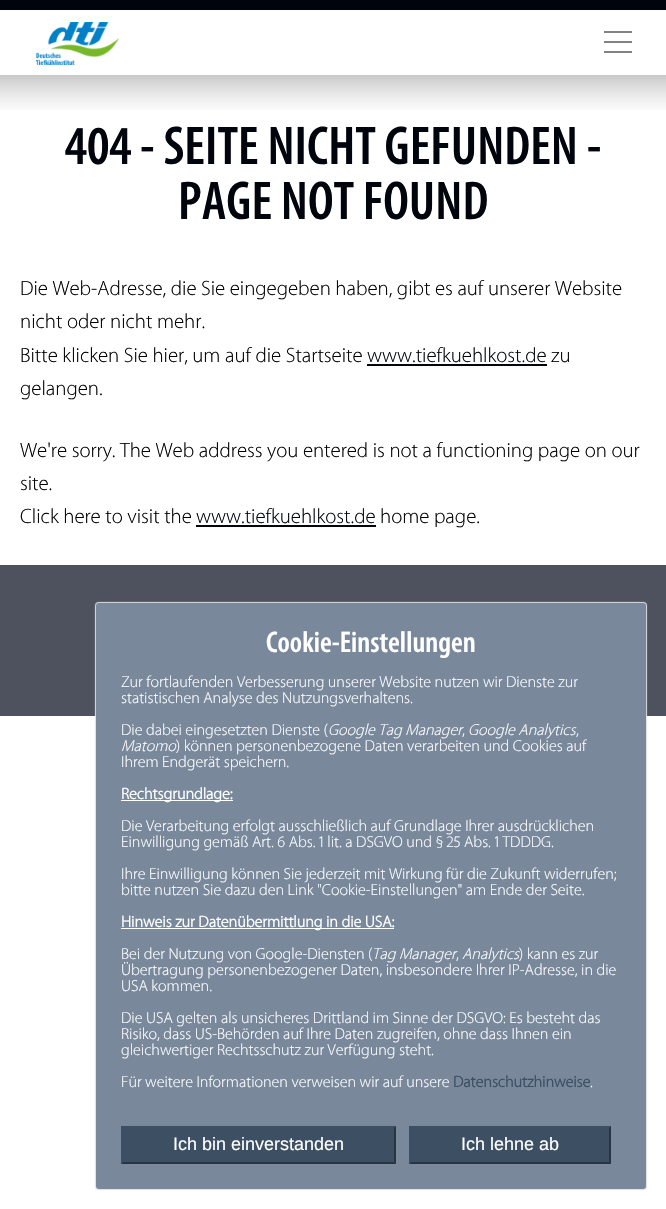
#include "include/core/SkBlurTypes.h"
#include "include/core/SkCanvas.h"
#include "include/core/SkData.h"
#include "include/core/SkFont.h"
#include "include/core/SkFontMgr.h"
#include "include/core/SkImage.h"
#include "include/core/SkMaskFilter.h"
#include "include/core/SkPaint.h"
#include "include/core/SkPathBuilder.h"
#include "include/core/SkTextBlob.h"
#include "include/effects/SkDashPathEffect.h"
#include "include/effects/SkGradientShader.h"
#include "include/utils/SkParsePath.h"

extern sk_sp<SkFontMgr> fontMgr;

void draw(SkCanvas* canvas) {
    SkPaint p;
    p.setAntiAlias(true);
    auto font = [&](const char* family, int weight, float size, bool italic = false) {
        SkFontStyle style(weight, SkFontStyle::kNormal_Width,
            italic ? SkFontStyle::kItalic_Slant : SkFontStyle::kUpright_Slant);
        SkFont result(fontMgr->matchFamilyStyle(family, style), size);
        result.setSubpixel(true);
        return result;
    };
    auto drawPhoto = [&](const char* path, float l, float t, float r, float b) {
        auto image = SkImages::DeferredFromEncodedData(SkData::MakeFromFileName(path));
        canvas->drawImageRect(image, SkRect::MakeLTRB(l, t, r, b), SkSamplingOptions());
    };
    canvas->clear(0xFFFFFFFF);
    p.setColor(0xFF00040C);
    canvas->drawRect(SkRect::MakeLTRB(0, 0, 666, 10), p);
    drawPhoto("media/1.png", 0, 75, 666, 110);
    auto font1 = font("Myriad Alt", 600, 55);
    canvas->drawString("404 - SEITE NICHT GEFUNDEN -", 65, 164, font1, p);
    auto font2 = font("Myriad", 600, 55);
    canvas->drawString("PAGE NOT FOUND", 178, 219, font2, p);
    auto font3 = font("Myriad", 300, 20.8f);
    p.setColor(0xFF000000);
    {
        const struct { const char* s; float x, y; } items[] = {
            {"Die Web-Adresse, die Sie eingegeben haben, gibt es auf unserer Website", 20, 295},
            {"nicht oder nicht mehr.", 20, 328},
            {"Bitte klicken Sie hier, um auf die Startseite", 20, 362},
        };
        for (auto [s, x, y] : items) {
            canvas->drawString(s, x, y, font3, p);
        }
    }
    p.setColor(0xFF00040C);
    canvas->drawString("www.tiefkuehlkost.de", 367, 362, font3, p);
    canvas->drawRect(SkRect::MakeLTRB(367, 364, 547, 366), p);
    p.setColor(0xFF000000);
    {
        const struct { const char* s; float x, y; } items[] = {
            {"zu", 551, 362},
            {"gelangen.", 20, 395},
            {"We're sorry. The Web address you entered is not a functioning page on our", 20, 457},
            {"site.", 20, 490},
            {"Click here to visit the", 20, 523},
        };
        for (auto [s, x, y] : items) {
            canvas->drawString(s, x, y, font3, p);
        }
    }
    p.setColor(0xFF00040C);
    canvas->drawString("www.tiefkuehlkost.de", 196, 523, font3, p);
    canvas->drawRect(SkRect::MakeLTRB(196, 525, 376, 527), p);
    p.setColor(0xFF000000);
    canvas->drawString("home page.", 380, 523, font3, p);
    p.setColor(0xFF4D525E);
    canvas->drawRect(SkRect::MakeLTRB(0, 565, 666, 716), p);
    drawPhoto("media/2.png", 36, 22, 119, 65);
    {
        const struct { float l, t, r, b; SkColor color; } items[] = {
            {604, 31, 632, 33, 0xFF808286},
            {604, 41, 632, 43, 0xFF808286},
            {604, 51, 632, 53, 0xFF808286},
        };
        for (auto [l, t, r, b, color] : items) {
            p.setColor(color);
            canvas->drawRect(SkRect::MakeLTRB(l, t, r, b), p);
        }
    }
    p.setColor(0xFFE0E0E0);
    p.setMaskFilter(SkMaskFilter::MakeBlur(kNormal_SkBlurStyle, 0.5f));
    canvas->drawRoundRect(SkRect::MakeLTRB(95, 602, 647, 1190), 4, 4, p);
    p.setMaskFilter(nullptr);
    p.setColor(0xFF79889B);
    canvas->drawRoundRect(SkRect::MakeLTRB(96, 603, 646, 1189), 3, 3, p);
    auto font4 = font("Myriad", 600, 30);
    p.setColor(0xFFFFFFFF);
    canvas->drawString("Cookie-Einstellungen", 266, 652, font4, p);
    auto font5 = font("Myriad", 300, 16);
    {
        const struct { const char* s; float x, y; } items[] = {
            {"Zur fortlaufenden Verbesserung unserer Website nutzen wir Dienste zur", 121, 687},
            {"statistischen Analyse des Nutzungsverhaltens.", 121, 703},
            {"Die dabei eingesetzten Dienste (", 121, 735},
        };
        for (auto [s, x, y] : items) {
            canvas->drawString(s, x, y, font5, p);
        }
    }
    auto font6 = font("Myriad", 300, 16, true);
    canvas->drawString("Google Tag Manager", 328, 735, font6, p);
    canvas->drawString("Google Analytics", 468, 735, font6, p);
    canvas->drawString(",", 462, 735, font5, p);
    canvas->drawString(",", 576, 735, font5, p);
    canvas->drawString("Matomo", 121, 751, font6, p);
    canvas->drawString(") können personenbezogene Daten verarbeiten und Cookies auf", 176, 751, font5, p);
    canvas->drawString("Ihrem Endgerät speichern.", 121, 767, font5, p);
    canvas->drawRect(SkRect::MakeLTRB(121, 800, 233, 801), p);
    auto font7 = font("Myriad", 700, 16);
    canvas->drawString("Rechtsgrundlage:", 121, 799, font7, p);
    canvas->drawString("Die Verarbeitung erfolgt ausschließlich auf Grundlage Ihrer ausdrücklichen", 121, 831, font5, p);
    auto font8 = font("Myriad Alt", 300, 16);
    canvas->drawString("Einwilligung gemäß Art. 6 Abs. 1 lit. a DSGVO und § 25 Abs. 1 TDDDG.", 121, 847, font8, p);
    canvas->drawString("Ihre Einwilligung können Sie jederzeit mit Wirkung für die Zukunft widerrufen;", 121, 879, font5, p);
    canvas->drawString("bitte nutzen Sie dazu den Link \"Cookie-Einstellungen\" am Ende der Seite.", 121, 895, font5, p);
    canvas->drawRect(SkRect::MakeLTRB(121, 928, 394, 929), p);
    canvas->drawString("Hinweis zur Datenübermittlung in die USA:", 121, 927, font7, p);
    canvas->drawString("Bei der Nutzung von Google-Diensten (", 121, 959, font5, p);
    canvas->drawString("Tag Manager", 372, 959, font6, p);
    canvas->drawString("Analytics", 462, 959, font6, p);
    {
        const struct { const char* s; float x, y; } items[] = {
            {") kann es zur", 519, 959},
            {",", 456, 959},
            {"Übertragung personenbezogener Daten, insbesondere Ihrer IP-Adresse, in die", 121, 975},
            {"USA kommen.", 121, 991},
            {"Die USA gelten als unsicheres Drittland im Sinne der DSGVO: Es besteht das", 121, 1023},
            {"Risiko, dass US-Behörden auf Ihre Daten zugreifen, ohne dass Ihnen ein", 121, 1039},
            {"gleichwertiger Rechtsschutz zur Verfügung steht.", 121, 1055},
            {"Für weitere Informationen verweisen wir auf unsere", 121, 1087},
        };
        for (auto [s, x, y] : items) {
            canvas->drawString(s, x, y, font5, p);
        }
    }
    p.setColor(0xFF3D4F63);
    canvas->drawString("Datenschutzhinweise", 453, 1087, font7, p);
    p.setColor(0xFFFFFFFF);
    canvas->drawString(".", 590, 1087, font5, p);
    p.setColor(0xFF3D4F63);
    canvas->drawRect(SkRect::MakeLTRB(121, 1126, 396, 1164), p);
    p.setColor(0xFF293542);
    canvas->drawPath(SkPathBuilder().moveTo(396, 1126).lineTo(396, 1164).lineTo(394, 1162).lineTo(394, 1128).close().detach(), p);
    canvas->drawPath(SkPathBuilder().moveTo(396, 1164).lineTo(121, 1164).lineTo(123, 1162).lineTo(394, 1162).close().detach(), p);
    p.setColor(0xFF3D4F63);
    canvas->drawPath(SkPathBuilder().moveTo(121, 1164).lineTo(121, 1126).lineTo(123, 1128).lineTo(123, 1162).close().detach(), p);
    auto font9 = font("Liberation Sans", 400, 18);
    p.setColor(0xFFFFFFFF);
    canvas->drawString("Ich bin einverstanden", 173, 1150, font9, p);
    p.setColor(0xFF3D4F63);
    canvas->drawRect(SkRect::MakeLTRB(409, 1126, 611, 1164), p);
    p.setColor(0xFF293542);
    canvas->drawPath(SkPathBuilder().moveTo(611, 1126).lineTo(611, 1164).lineTo(609, 1162).lineTo(609, 1128).close().detach(), p);
    canvas->drawPath(SkPathBuilder().moveTo(611, 1164).lineTo(409, 1164).lineTo(411, 1162).lineTo(609, 1162).close().detach(), p);
    p.setColor(0xFF3D4F63);
    canvas->drawPath(SkPathBuilder().moveTo(409, 1164).lineTo(409, 1126).lineTo(411, 1128).lineTo(411, 1162).close().detach(), p);
    p.setColor(0xFFFFFFFF);
    canvas->drawString("Ich lehne ab", 461, 1150, font9, p);
}
